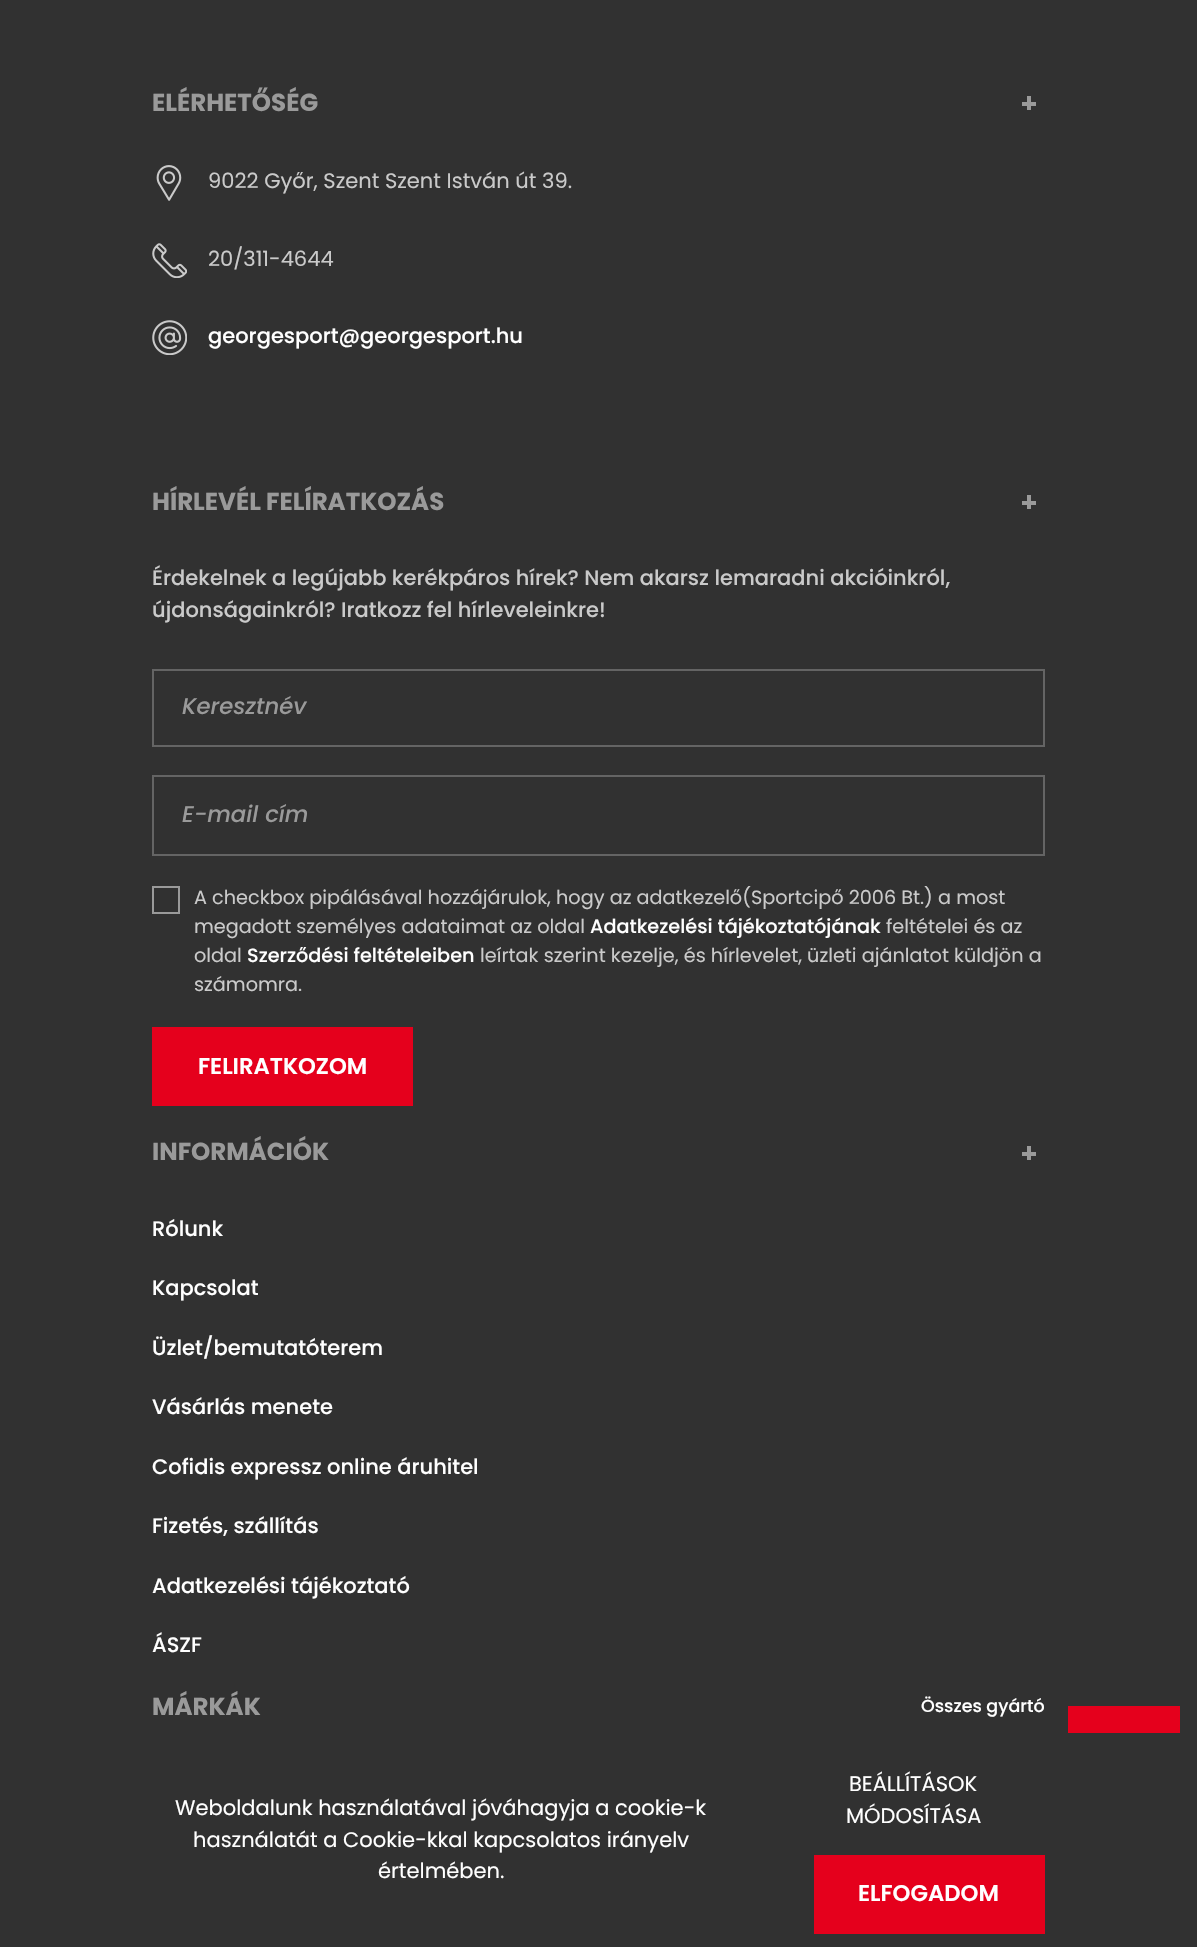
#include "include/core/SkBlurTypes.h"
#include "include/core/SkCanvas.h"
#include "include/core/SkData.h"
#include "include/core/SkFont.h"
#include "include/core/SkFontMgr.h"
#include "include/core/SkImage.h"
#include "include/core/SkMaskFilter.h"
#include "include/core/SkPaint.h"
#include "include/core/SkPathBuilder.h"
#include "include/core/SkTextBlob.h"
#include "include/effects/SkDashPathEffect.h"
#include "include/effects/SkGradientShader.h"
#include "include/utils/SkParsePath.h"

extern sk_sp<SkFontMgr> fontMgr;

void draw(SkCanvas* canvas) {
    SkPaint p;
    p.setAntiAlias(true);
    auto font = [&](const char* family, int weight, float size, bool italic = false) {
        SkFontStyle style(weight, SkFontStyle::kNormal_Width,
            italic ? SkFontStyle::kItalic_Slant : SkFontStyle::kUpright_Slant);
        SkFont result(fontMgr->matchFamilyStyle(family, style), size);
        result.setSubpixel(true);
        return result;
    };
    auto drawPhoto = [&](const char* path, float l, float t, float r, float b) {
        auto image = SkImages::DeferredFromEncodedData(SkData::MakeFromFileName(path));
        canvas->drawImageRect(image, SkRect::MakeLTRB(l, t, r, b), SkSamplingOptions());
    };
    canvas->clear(0xFF313131);
    auto font1 = font("Poppins", 700, 24.5f);
    p.setColor(0xFF9A9A9A);
    canvas->drawString("ELÉRHETŐSÉG", 152, 111, font1, p);
    canvas->drawRect(SkRect::MakeLTRB(1027, 96, 1031, 110), p);
    canvas->drawRect(SkRect::MakeLTRB(1022, 102, 1036, 106), p);
    drawPhoto("media/1.png", 156, 165, 182, 201);
    auto font2 = font("Poppins", 400, 21);
    p.setColor(0xFFCACACA);
    canvas->drawString("9022 Győr, Szent Szent István út 39.", 208, 188, font2, p);
    drawPhoto("media/2.png", 152, 243, 187, 278);
    canvas->drawString("20/311-4644", 208, 266, font2, p);
    drawPhoto("media/3.png", 152, 320, 187, 355);
    auto font3 = font("Poppins", 500, 21);
    p.setColor(0xFFFFFFFF);
    canvas->drawString("georgesport@georgesport.hu", 208, 343, font3, p);
    p.setColor(0xFF9A9A9A);
    canvas->drawString("HÍRLEVÉL FELÍRATKOZÁS", 152, 510, font1, p);
    canvas->drawRect(SkRect::MakeLTRB(1027, 495, 1031, 509), p);
    canvas->drawRect(SkRect::MakeLTRB(1022, 501, 1036, 505), p);
    p.setColor(0xFFCACACA);
    canvas->drawString("Érdekelnek a legújabb kerékpáros hírek? Nem akarsz lemaradni akcióinkról,", 152, 585, font3, p);
    canvas->drawString("újdonságainkról? Iratkozz fel hírleveleinkre!", 152, 617, font3, p);
    p.setStyle(SkPaint::kStroke_Style);
    p.setStrokeWidth(2);
    p.setColor(0xFF646464);
    canvas->drawRect(SkRect::MakeLTRB(153, 670, 1044, 746), p);
    auto font4 = font("Poppins", 500, 22.75f, true);
    p.setStyle(SkPaint::kFill_Style);
    p.setColor(0xFF9A9A9A);
    canvas->drawString("Keresztnév", 182, 714, font4, p);
    p.setStyle(SkPaint::kStroke_Style);
    p.setColor(0xFF646464);
    canvas->drawRect(SkRect::MakeLTRB(153, 776, 1044, 855), p);
    p.setStyle(SkPaint::kFill_Style);
    p.setColor(0xFF9A9A9A);
    canvas->drawString("E-mail cím", 182, 822, font4, p);
    p.setStyle(SkPaint::kStroke_Style);
    canvas->drawRect(SkRect::MakeLTRB(153, 887, 179, 913), p);
    auto font5 = font("Poppins", 400, 19.25f);
    p.setStyle(SkPaint::kFill_Style);
    p.setColor(0xFFCACACA);
    canvas->drawString("A checkbox pipálásával hozzájárulok, hogy az adatkezelő(Sportcipő 2006 Bt.) a most", 194, 904, font5, p);
    canvas->drawString("megadott személyes adataimat az oldal", 194, 933, font5, p);
    auto font6 = font("Poppins", 500, 19.25f);
    p.setColor(0xFFFFFFFF);
    canvas->drawString("Adatkezelési tájékoztatójának", 590, 933, font6, p);
    p.setColor(0xFFCACACA);
    canvas->drawString("feltételei és az", 886, 933, font5, p);
    canvas->drawString("oldal", 194, 962, font5, p);
    p.setColor(0xFFFFFFFF);
    canvas->drawString("Szerződési feltételeiben", 247, 962, font6, p);
    p.setColor(0xFFCACACA);
    canvas->drawString("leírtak szerint kezelje, és hírlevelet, üzleti ajánlatot küldjön a", 480, 962, font5, p);
    canvas->drawString("számomra.", 194, 991, font5, p);
    p.setColor(0xFFE5001C);
    canvas->drawRect(SkRect::MakeLTRB(152, 1027, 413, 1106), p);
    auto font7 = font("Poppins", 600, 22.75f);
    p.setColor(0xFFFFFFFF);
    canvas->drawString("FELIRATKOZOM", 198, 1074, font7, p);
    p.setColor(0xFF9A9A9A);
    canvas->drawString("INFORMÁCIÓK", 152, 1160, font1, p);
    canvas->drawRect(SkRect::MakeLTRB(1027, 1146, 1031, 1160), p);
    canvas->drawRect(SkRect::MakeLTRB(1022, 1152, 1036, 1156), p);
    p.setColor(0xFFFFFFFF);
    {
        const struct { const char* s; float x, y; } items[] = {
            {"Rólunk", 152, 1236},
            {"Kapcsolat", 152, 1295},
            {"Üzlet/bemutatóterem", 152, 1355},
            {"Vásárlás menete", 152, 1414},
            {"Cofidis expressz online áruhitel", 152, 1474},
            {"Fizetés, szállítás", 152, 1533},
            {"Adatkezelési tájékoztató", 152, 1593},
            {"ÁSZF", 152, 1652},
        };
        for (auto [s, x, y] : items) {
            canvas->drawString(s, x, y, font3, p);
        }
    }
    p.setColor(0xFF9A9A9A);
    canvas->drawString("MÁRKÁK", 152, 1715, font1, p);
    auto font8 = font("Poppins", 500, 17.5f);
    p.setColor(0xFFFFFFFF);
    canvas->drawString("Összes gyártó", 921, 1712, font8, p);
    p.setColor(0xFFE5001C);
    canvas->drawRect(SkRect::MakeLTRB(1068, 1706, 1180, 1733), p);
    p.setColor(0xFFFFFFFF);
    {
        const struct { const char* s; float x, y; } items[] = {
            {"Weboldalunk használatával jóváhagyja a cookie-k", 175, 1815},
            {"használatát a Cookie-kkal kapcsolatos irányelv", 193, 1847},
            {"értelmében.", 378, 1878},
            {"BEÁLLÍTÁSOK", 849, 1791},
            {"MÓDOSÍTÁSA", 846, 1823},
        };
        for (auto [s, x, y] : items) {
            canvas->drawString(s, x, y, font2, p);
        }
    }
    p.setColor(0xFFE5001C);
    canvas->drawRect(SkRect::MakeLTRB(814, 1855, 1045, 1934), p);
    p.setColor(0xFFFFFFFF);
    canvas->drawString("ELFOGADOM", 858, 1901, font7, p);
}
